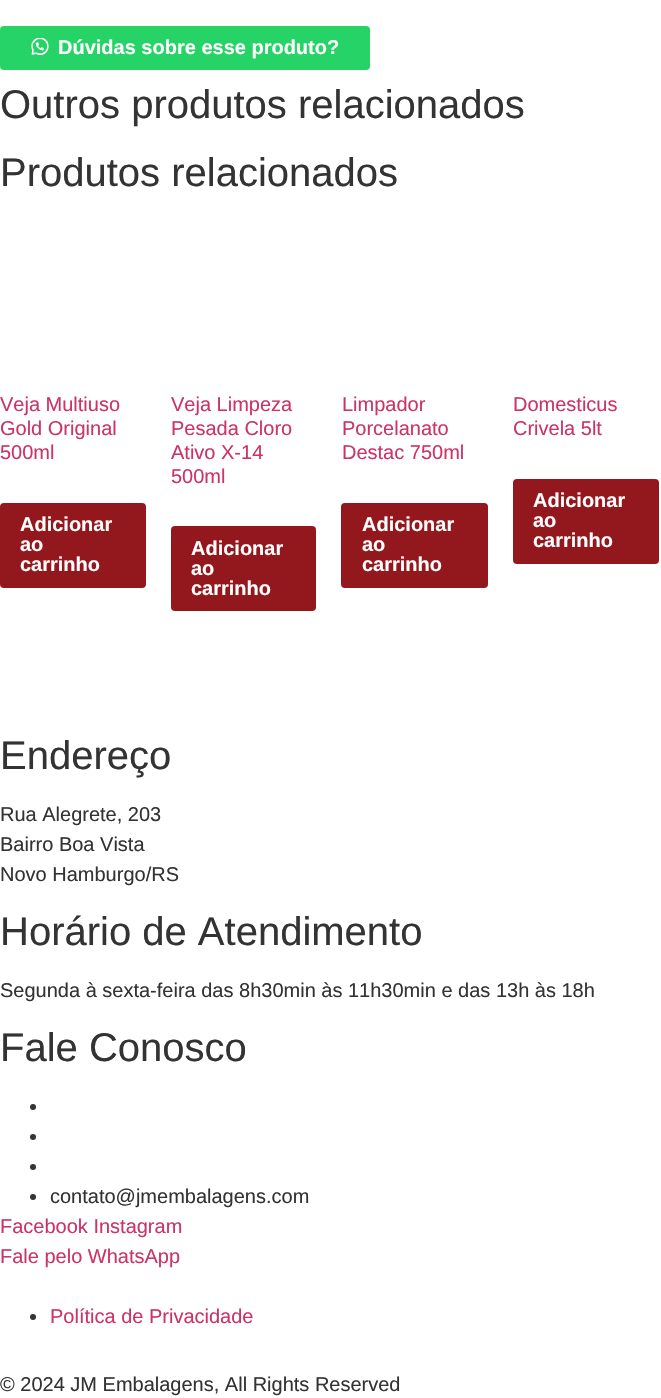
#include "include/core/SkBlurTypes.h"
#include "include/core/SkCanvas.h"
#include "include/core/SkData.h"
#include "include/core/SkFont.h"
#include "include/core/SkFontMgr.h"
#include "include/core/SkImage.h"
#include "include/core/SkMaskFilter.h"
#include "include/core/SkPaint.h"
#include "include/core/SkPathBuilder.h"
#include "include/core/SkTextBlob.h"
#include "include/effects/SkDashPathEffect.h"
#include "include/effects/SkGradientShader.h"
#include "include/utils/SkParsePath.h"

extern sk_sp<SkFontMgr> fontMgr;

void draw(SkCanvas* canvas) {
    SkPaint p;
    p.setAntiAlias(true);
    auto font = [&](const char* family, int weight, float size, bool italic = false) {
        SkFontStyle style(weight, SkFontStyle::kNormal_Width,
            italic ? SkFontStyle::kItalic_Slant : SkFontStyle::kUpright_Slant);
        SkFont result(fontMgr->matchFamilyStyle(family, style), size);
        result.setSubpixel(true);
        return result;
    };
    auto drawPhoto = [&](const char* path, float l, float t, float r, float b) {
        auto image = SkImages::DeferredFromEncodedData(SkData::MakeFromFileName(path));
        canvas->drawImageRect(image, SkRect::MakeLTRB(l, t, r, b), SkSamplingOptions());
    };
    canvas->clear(0xFFFFFFFF);
    p.setColor(0xFF25D366);
    canvas->drawRoundRect(SkRect::MakeLTRB(0, 26, 370, 70), 4, 4, p);
    drawPhoto("media/1.png", 31, 38, 49, 55);
    auto font1 = font("Liberation Sans", 700, 20);
    p.setColor(0xFFFFFFFF);
    canvas->drawString("Dúvidas sobre esse produto?", 58, 54, font1, p);
    auto font2 = font("Liberation Sans", 400, 40);
    p.setColor(0xFF333333);
    canvas->drawString("Outros produtos relacionados", 0, 118, font2, p);
    canvas->drawString("Produtos relacionados", 0, 186, font2, p);
    auto font3 = font("Liberation Sans", 400, 20);
    p.setColor(0xFFCC3366);
    {
        const struct { const char* s; float x, y; } items[] = {
            {"Veja Multiuso", 0, 411},
            {"Gold Original", 0, 435},
            {"500ml", 0, 459},
        };
        for (auto [s, x, y] : items) {
            canvas->drawString(s, x, y, font3, p);
        }
    }
    p.setColor(0xFF93181D);
    canvas->drawRoundRect(SkRect::MakeLTRB(0, 503, 146, 588), 4, 4, p);
    p.setColor(0xFFFFFFFF);
    {
        const struct { const char* s; float x, y; } items[] = {
            {"Adicionar", 20, 531},
            {"ao", 20, 551},
            {"carrinho", 20, 571},
        };
        for (auto [s, x, y] : items) {
            canvas->drawString(s, x, y, font1, p);
        }
    }
    p.setColor(0xFFCC3366);
    {
        const struct { const char* s; float x, y; } items[] = {
            {"Veja Limpeza", 171, 411},
            {"Pesada Cloro", 171, 435},
            {"Ativo X-14", 171, 459},
            {"500ml", 171, 483},
        };
        for (auto [s, x, y] : items) {
            canvas->drawString(s, x, y, font3, p);
        }
    }
    p.setColor(0xFF93181D);
    canvas->drawRoundRect(SkRect::MakeLTRB(171, 526, 316, 611), 4, 4, p);
    p.setColor(0xFFFFFFFF);
    {
        const struct { const char* s; float x, y; } items[] = {
            {"Adicionar", 191, 555},
            {"ao", 191, 575},
            {"carrinho", 191, 595},
        };
        for (auto [s, x, y] : items) {
            canvas->drawString(s, x, y, font1, p);
        }
    }
    p.setColor(0xFFCC3366);
    {
        const struct { const char* s; float x, y; } items[] = {
            {"Limpador", 342, 411},
            {"Porcelanato", 342, 435},
            {"Destac 750ml", 342, 459},
        };
        for (auto [s, x, y] : items) {
            canvas->drawString(s, x, y, font3, p);
        }
    }
    p.setColor(0xFF93181D);
    canvas->drawRoundRect(SkRect::MakeLTRB(341, 503, 488, 588), 4, 4, p);
    p.setColor(0xFFFFFFFF);
    {
        const struct { const char* s; float x, y; } items[] = {
            {"Adicionar", 362, 531},
            {"ao", 362, 551},
            {"carrinho", 362, 571},
        };
        for (auto [s, x, y] : items) {
            canvas->drawString(s, x, y, font1, p);
        }
    }
    p.setColor(0xFFCC3366);
    canvas->drawString("Domesticus", 513, 411, font3, p);
    canvas->drawString("Crivela 5lt", 513, 435, font3, p);
    p.setColor(0xFF93181D);
    canvas->drawRoundRect(SkRect::MakeLTRB(513, 479, 659, 564), 4, 4, p);
    p.setColor(0xFFFFFFFF);
    {
        const struct { const char* s; float x, y; } items[] = {
            {"Adicionar", 533, 507},
            {"ao", 533, 527},
            {"carrinho", 533, 547},
        };
        for (auto [s, x, y] : items) {
            canvas->drawString(s, x, y, font1, p);
        }
    }
    p.setColor(0xFF333333);
    canvas->drawString("Endereço", 0, 769, font2, p);
    {
        const struct { const char* s; float x, y; } items[] = {
            {"Rua Alegrete, 203", 0, 821},
            {"Bairro Boa Vista", 0, 851},
            {"Novo Hamburgo/RS", 0, 881},
        };
        for (auto [s, x, y] : items) {
            canvas->drawString(s, x, y, font3, p);
        }
    }
    canvas->drawString("Horário de Atendimento", 0, 945, font2, p);
    canvas->drawString("Segunda à sexta-feira das 8h30min às 11h30min e das 13h às 18h", 0, 997, font3, p);
    canvas->drawString("Fale Conosco", 0, 1061, font2, p);
    canvas->drawCircle(33, 1107, 3, p);
    canvas->drawCircle(33, 1137, 3, p);
    canvas->drawCircle(33, 1167, 3, p);
    canvas->drawCircle(33, 1197, 3, p);
    canvas->drawString("contato@jmembalagens.com", 50, 1203, font3, p);
    p.setColor(0xFFCC3366);
    canvas->drawString("Facebook Instagram", 0, 1233, font3, p);
    canvas->drawString("Fale pelo WhatsApp", 0, 1263, font3, p);
    p.setColor(0xFF333333);
    canvas->drawCircle(33, 1317, 3, p);
    p.setColor(0xFFCC3366);
    canvas->drawString("Política de Privacidade", 50, 1323, font3, p);
    p.setColor(0xFF333333);
    canvas->drawString("© 2024 JM Embalagens, All Rights Reserved", 0, 1391, font3, p);
}
